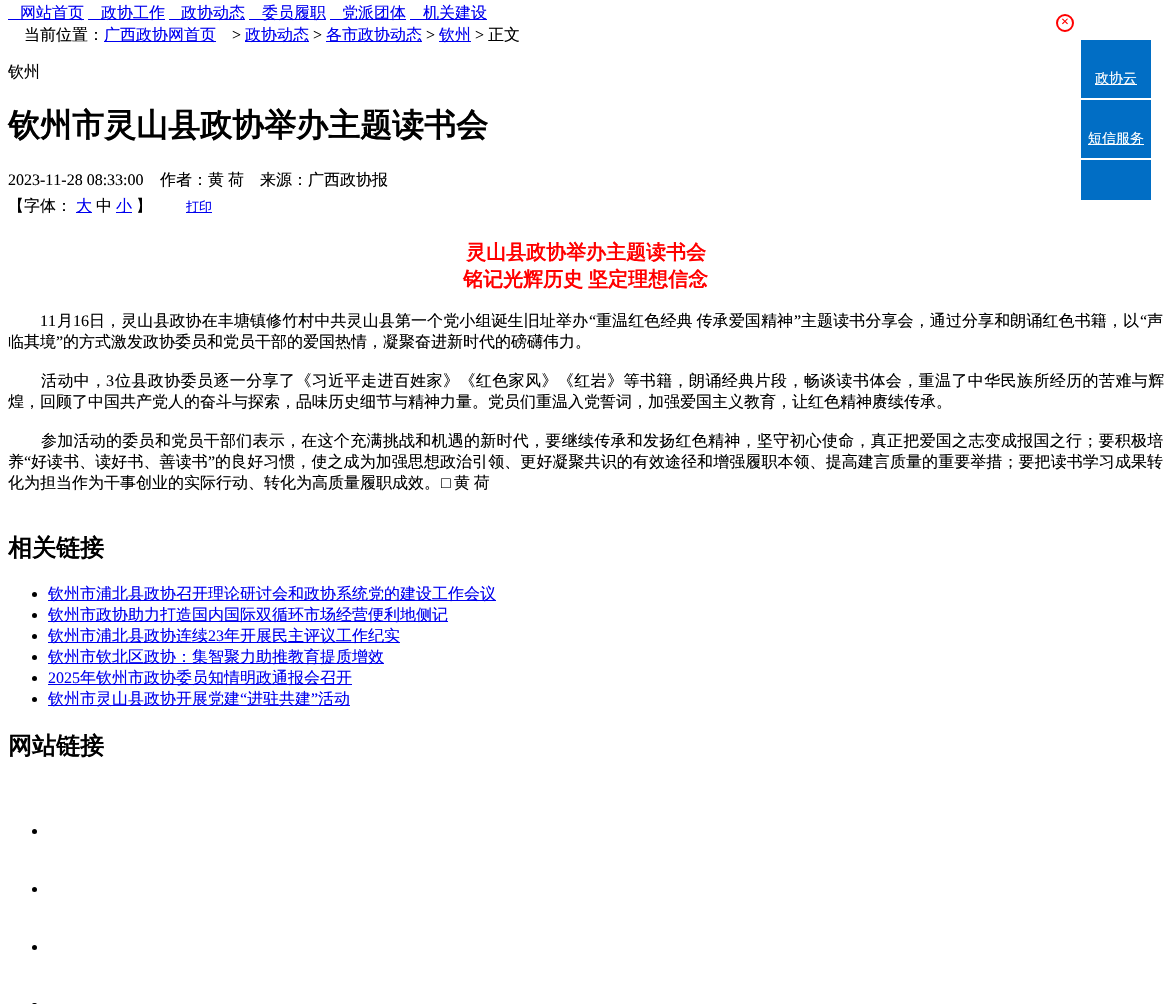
#include "include/core/SkBlurTypes.h"
#include "include/core/SkCanvas.h"
#include "include/core/SkData.h"
#include "include/core/SkFont.h"
#include "include/core/SkFontMgr.h"
#include "include/core/SkImage.h"
#include "include/core/SkMaskFilter.h"
#include "include/core/SkPaint.h"
#include "include/core/SkPathBuilder.h"
#include "include/core/SkTextBlob.h"
#include "include/effects/SkDashPathEffect.h"
#include "include/effects/SkGradientShader.h"
#include "include/utils/SkParsePath.h"

extern sk_sp<SkFontMgr> fontMgr;

void draw(SkCanvas* canvas) {
    SkPaint p;
    p.setAntiAlias(true);
    auto font = [&](const char* family, int weight, float size, bool italic = false) {
        SkFontStyle style(weight, SkFontStyle::kNormal_Width,
            italic ? SkFontStyle::kItalic_Slant : SkFontStyle::kUpright_Slant);
        SkFont result(fontMgr->matchFamilyStyle(family, style), size);
        result.setSubpixel(true);
        return result;
    };
    auto drawTracked = [&](const char* s, float x, float y, const SkFont& font, const SkPaint& ink, float letter, float word) {
        std::vector<SkGlyphID> glyphs(font.countText(s, strlen(s), SkTextEncoding::kUTF8));
        std::vector<float> xs(glyphs.size());
        font.textToGlyphs(s, strlen(s), SkTextEncoding::kUTF8, glyphs);
        font.getXPos(glyphs, xs, x);
        float extra = 0;
        for (size_t i = 0; i < glyphs.size(); i++) {
            xs[i] += extra;
            extra += letter + word * (glyphs[i] == font.unicharToGlyph(' '));
        }
        canvas->drawTextBlob(SkTextBlob::MakeFromPosHGlyphs(glyphs, xs, y, font), 0, 0, ink);
    };
    canvas->clear(0xFFFFFFFF);
    p.setColor(0xFF0000EE);
    canvas->drawRect(SkRect::MakeLTRB(8, 19, 84, 20), p);
    auto font1 = font("WenQuanYi Zen Hei", 500, 16);
    canvas->drawString("网站首页", 20, 18, font1, p);
    canvas->drawRect(SkRect::MakeLTRB(88, 19, 165, 20), p);
    canvas->drawString("政协工作", 101, 18, font1, p);
    canvas->drawRect(SkRect::MakeLTRB(169, 19, 245, 20), p);
    canvas->drawString("政协动态", 181, 18, font1, p);
    canvas->drawRect(SkRect::MakeLTRB(249, 19, 326, 20), p);
    canvas->drawString("委员履职", 262, 18, font1, p);
    canvas->drawRect(SkRect::MakeLTRB(330, 19, 406, 20), p);
    canvas->drawString("党派团体", 342, 18, font1, p);
    canvas->drawRect(SkRect::MakeLTRB(410, 19, 487, 20), p);
    canvas->drawString("机关建设", 423, 18, font1, p);
    p.setStyle(SkPaint::kStroke_Style);
    p.setStrokeWidth(2);
    p.setColor(0xFFFF0000);
    canvas->drawCircle(1065, 23, 8, p);
    auto font2 = font("Liberation Serif", 700, 14);
    p.setStyle(SkPaint::kFill_Style);
    canvas->drawString("×", 1061, 26, font2, p);
    p.setColor(0xFF016EC5);
    canvas->drawRect(SkRect::MakeLTRB(1081, 40, 1151, 98), p);
    p.setColor(0xFFFFFFFF);
    canvas->drawRect(SkRect::MakeLTRB(1095, 84, 1137, 85), p);
    auto font3 = font("WenQuanYi Zen Hei", 500, 14);
    canvas->drawString("政协云", 1095, 83, font3, p);
    p.setColor(0xFF016EC5);
    canvas->drawRect(SkRect::MakeLTRB(1081, 100, 1151, 158), p);
    p.setColor(0xFFFFFFFF);
    canvas->drawRect(SkRect::MakeLTRB(1088, 144, 1144, 145), p);
    canvas->drawString("短信服务", 1088, 143, font3, p);
    p.setColor(0xFF016EC5);
    canvas->drawRect(SkRect::MakeLTRB(1081, 160, 1151, 200), p);
    p.setColor(0xFF000000);
    canvas->drawString("当前位置：", 24, 40, font1, p);
    p.setColor(0xFF0000EE);
    canvas->drawRect(SkRect::MakeLTRB(104, 41, 216, 42), p);
    canvas->drawString("广西政协网首页", 104, 40, font1, p);
    auto font4 = font("Liberation Serif", 400, 16);
    p.setColor(0xFF000000);
    canvas->drawString(">", 232, 40, font4, p);
    p.setColor(0xFF0000EE);
    canvas->drawRect(SkRect::MakeLTRB(245, 41, 309, 42), p);
    canvas->drawString("政协动态", 245, 40, font1, p);
    p.setColor(0xFF000000);
    canvas->drawString(">", 313, 40, font4, p);
    p.setColor(0xFF0000EE);
    canvas->drawRect(SkRect::MakeLTRB(326, 41, 422, 42), p);
    canvas->drawString("各市政协动态", 326, 40, font1, p);
    p.setColor(0xFF000000);
    canvas->drawString(">", 426, 40, font4, p);
    p.setColor(0xFF0000EE);
    canvas->drawRect(SkRect::MakeLTRB(439, 41, 471, 42), p);
    canvas->drawString("钦州", 439, 40, font1, p);
    p.setColor(0xFF000000);
    canvas->drawString(">", 475, 40, font4, p);
    canvas->drawString("正文", 488, 40, font1, p);
    canvas->drawString("钦州", 8, 77, font1, p);
    auto font5 = font("WenQuanYi Zen Hei", 700, 32);
    canvas->drawString("钦州市灵山县政协举办主题读书会", 8, 136, font5, p);
    canvas->drawString("2023-11-28 08:33:00", 8, 185, font4, p);
    {
        const struct { const char* s; float x, y; } items[] = {
            {"作者：黄", 160, 185},
            {"荷　来源：广西政协报", 228, 185},
            {"【字体：", 8, 211},
        };
        for (auto [s, x, y] : items) {
            canvas->drawString(s, x, y, font1, p);
        }
    }
    p.setColor(0xFF0000EE);
    canvas->drawRect(SkRect::MakeLTRB(76, 212, 92, 213), p);
    canvas->drawString("大", 76, 211, font1, p);
    p.setColor(0xFF000000);
    canvas->drawString("中", 96, 211, font1, p);
    p.setColor(0xFF0000EE);
    canvas->drawRect(SkRect::MakeLTRB(116, 212, 132, 213), p);
    canvas->drawString("小", 116, 211, font1, p);
    p.setColor(0xFF000000);
    canvas->drawString("】", 136, 211, font1, p);
    p.setColor(0xFF0000EE);
    canvas->drawRect(SkRect::MakeLTRB(186, 212, 212, 213), p);
    auto font6 = font("WenQuanYi Zen Hei", 500, 13);
    canvas->drawString("打印", 186, 211, font6, p);
    auto font7 = font("WenQuanYi Zen Hei", 700, 20);
    p.setColor(0xFFFF0000);
    canvas->drawString("灵山县政协举办主题读书会", 466, 259, font7, p);
    drawTracked("铭记光辉历史 坚定理想信念", 463, 286, font7, p, 0, -1);
    p.setColor(0xFF000000);
    drawTracked("11", 40, 326, font4, p, 0.1f, 0);
    drawTracked("月", 57, 326, font1, p, 0.1f, 0);
    drawTracked("16", 73, 326, font4, p, 0.1f, 0);
    drawTracked("日，灵山县政协在丰塘镇修竹村中共灵山县第一个党小组诞生旧址举办", 89, 326, font1, p, 0.1f, 0);
    drawTracked("“", 589, 326, font4, p, 0.1f, 0);
    drawTracked("重温红色经典 传承爱国精神", 596, 326, font1, p, 0.1f, -1);
    drawTracked("”", 794, 326, font4, p, 0.1f, 0);
    drawTracked("主题读书分享会，通过分享和朗诵红色书籍，以", 801, 326, font1, p, 0.1f, 0);
    drawTracked("“", 1140, 326, font4, p, 0.1f, 0);
    drawTracked("声", 1147, 326, font1, p, 0.1f, 0);
    canvas->drawString("临其境", 8, 347, font1, p);
    canvas->drawString("”", 56, 347, font4, p);
    canvas->drawString("的方式激发政协委员和党员干部的爱国热情，凝聚奋进新时代的磅礴伟力。", 63, 347, font1, p);
    drawTracked("活动中，", 41, 386, font1, p, 0.4f, 0);
    drawTracked("3", 106, 386, font4, p, 0.4f, 0);
    drawTracked("位县政协委员逐一分享了《习近平走进百姓家》《红色家风》《红岩》等书籍，朗诵经典片段，畅谈读书体会，重温了中华民族所经历的苦难与辉", 115, 386, font1, p, 0.4f, 0);
    canvas->drawString("煌，回顾了中国共产党人的奋斗与探索，品味历史细节与精神力量。党员们重温入党誓词，加强爱国主义教育，让红色精神赓续传承。", 8, 407, font1, p);
    drawTracked("参加活动的委员和党员干部们表示，在这个充满挑战和机遇的新时代，要继续传承和发扬红色精神，坚守初心使命，真正把爱国之志变成报国之行；要积极培", 41, 446, font1, p, 0.27f, 0);
    drawTracked("养", 8, 467, font1, p, 0.07f, 0);
    drawTracked("“", 24, 467, font4, p, 0.07f, 0);
    drawTracked("好读书、读好书、善读书", 31, 467, font1, p, 0.07f, 0);
    drawTracked("”", 208, 467, font4, p, 0.07f, 0);
    drawTracked("的良好习惯，使之成为加强思想政治引领、更好凝聚共识的有效途径和增强履职本领、提高建言质量的重要举措；要把读书学习成果转", 215, 467, font1, p, 0.07f, 0);
    canvas->drawString("化为担当作为干事创业的实际行动、转化为高质量履职成效。", 8, 488, font1, p);
    canvas->drawString("□", 441, 488, font4, p);
    drawTracked("黄 荷", 454, 488, font1, p, 0, -1);
    auto font8 = font("WenQuanYi Zen Hei", 700, 24);
    canvas->drawString("相关链接", 8, 556, font8, p);
    canvas->drawCircle(34.5f, 594.5f, 2.5f, p);
    p.setColor(0xFF0000EE);
    canvas->drawRect(SkRect::MakeLTRB(48, 600, 496, 601), p);
    canvas->drawString("钦州市浦北县政协召开理论研讨会和政协系统党的建设工作会议", 48, 599, font1, p);
    p.setColor(0xFF000000);
    canvas->drawCircle(34.5f, 615.5f, 2.5f, p);
    p.setColor(0xFF0000EE);
    canvas->drawRect(SkRect::MakeLTRB(48, 621, 448, 622), p);
    canvas->drawString("钦州市政协助力打造国内国际双循环市场经营便利地侧记", 48, 620, font1, p);
    p.setColor(0xFF000000);
    canvas->drawCircle(34.5f, 636.5f, 2.5f, p);
    p.setColor(0xFF0000EE);
    canvas->drawRect(SkRect::MakeLTRB(48, 642, 400, 643), p);
    canvas->drawString("钦州市浦北县政协连续", 48, 641, font1, p);
    canvas->drawString("23", 208, 641, font4, p);
    canvas->drawString("年开展民主评议工作纪实", 224, 641, font1, p);
    p.setColor(0xFF000000);
    canvas->drawCircle(34.5f, 657.5f, 2.5f, p);
    p.setColor(0xFF0000EE);
    canvas->drawRect(SkRect::MakeLTRB(48, 663, 384, 664), p);
    canvas->drawString("钦州市钦北区政协：集智聚力助推教育提质增效", 48, 662, font1, p);
    p.setColor(0xFF000000);
    canvas->drawCircle(34.5f, 678.5f, 2.5f, p);
    p.setColor(0xFF0000EE);
    canvas->drawString("2025", 48, 683, font4, p);
    canvas->drawRect(SkRect::MakeLTRB(48, 684, 352, 685), p);
    canvas->drawString("年钦州市政协委员知情明政通报会召开", 80, 683, font1, p);
    canvas->drawRect(SkRect::MakeLTRB(48, 705, 350, 706), p);
    canvas->drawString("钦州市灵山县政协开展党建", 48, 704, font1, p);
    canvas->drawString("“", 240, 704, font4, p);
    canvas->drawString("进驻共建", 247, 704, font1, p);
    canvas->drawString("”", 311, 704, font4, p);
    canvas->drawString("活动", 318, 704, font1, p);
    p.setColor(0xFF000000);
    canvas->drawCircle(34.5f, 699.5f, 2.5f, p);
    canvas->drawString("网站链接", 8, 754, font8, p);
    canvas->drawCircle(34.5f, 831.5f, 2.5f, p);
    canvas->drawCircle(34.5f, 889.5f, 2.5f, p);
    canvas->drawCircle(34.5f, 947.5f, 2.5f, p);
    canvas->drawRoundRect(SkRect::MakeLTRB(32, 1003, 37, 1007), 2.5f, 2.5f, p);
}
